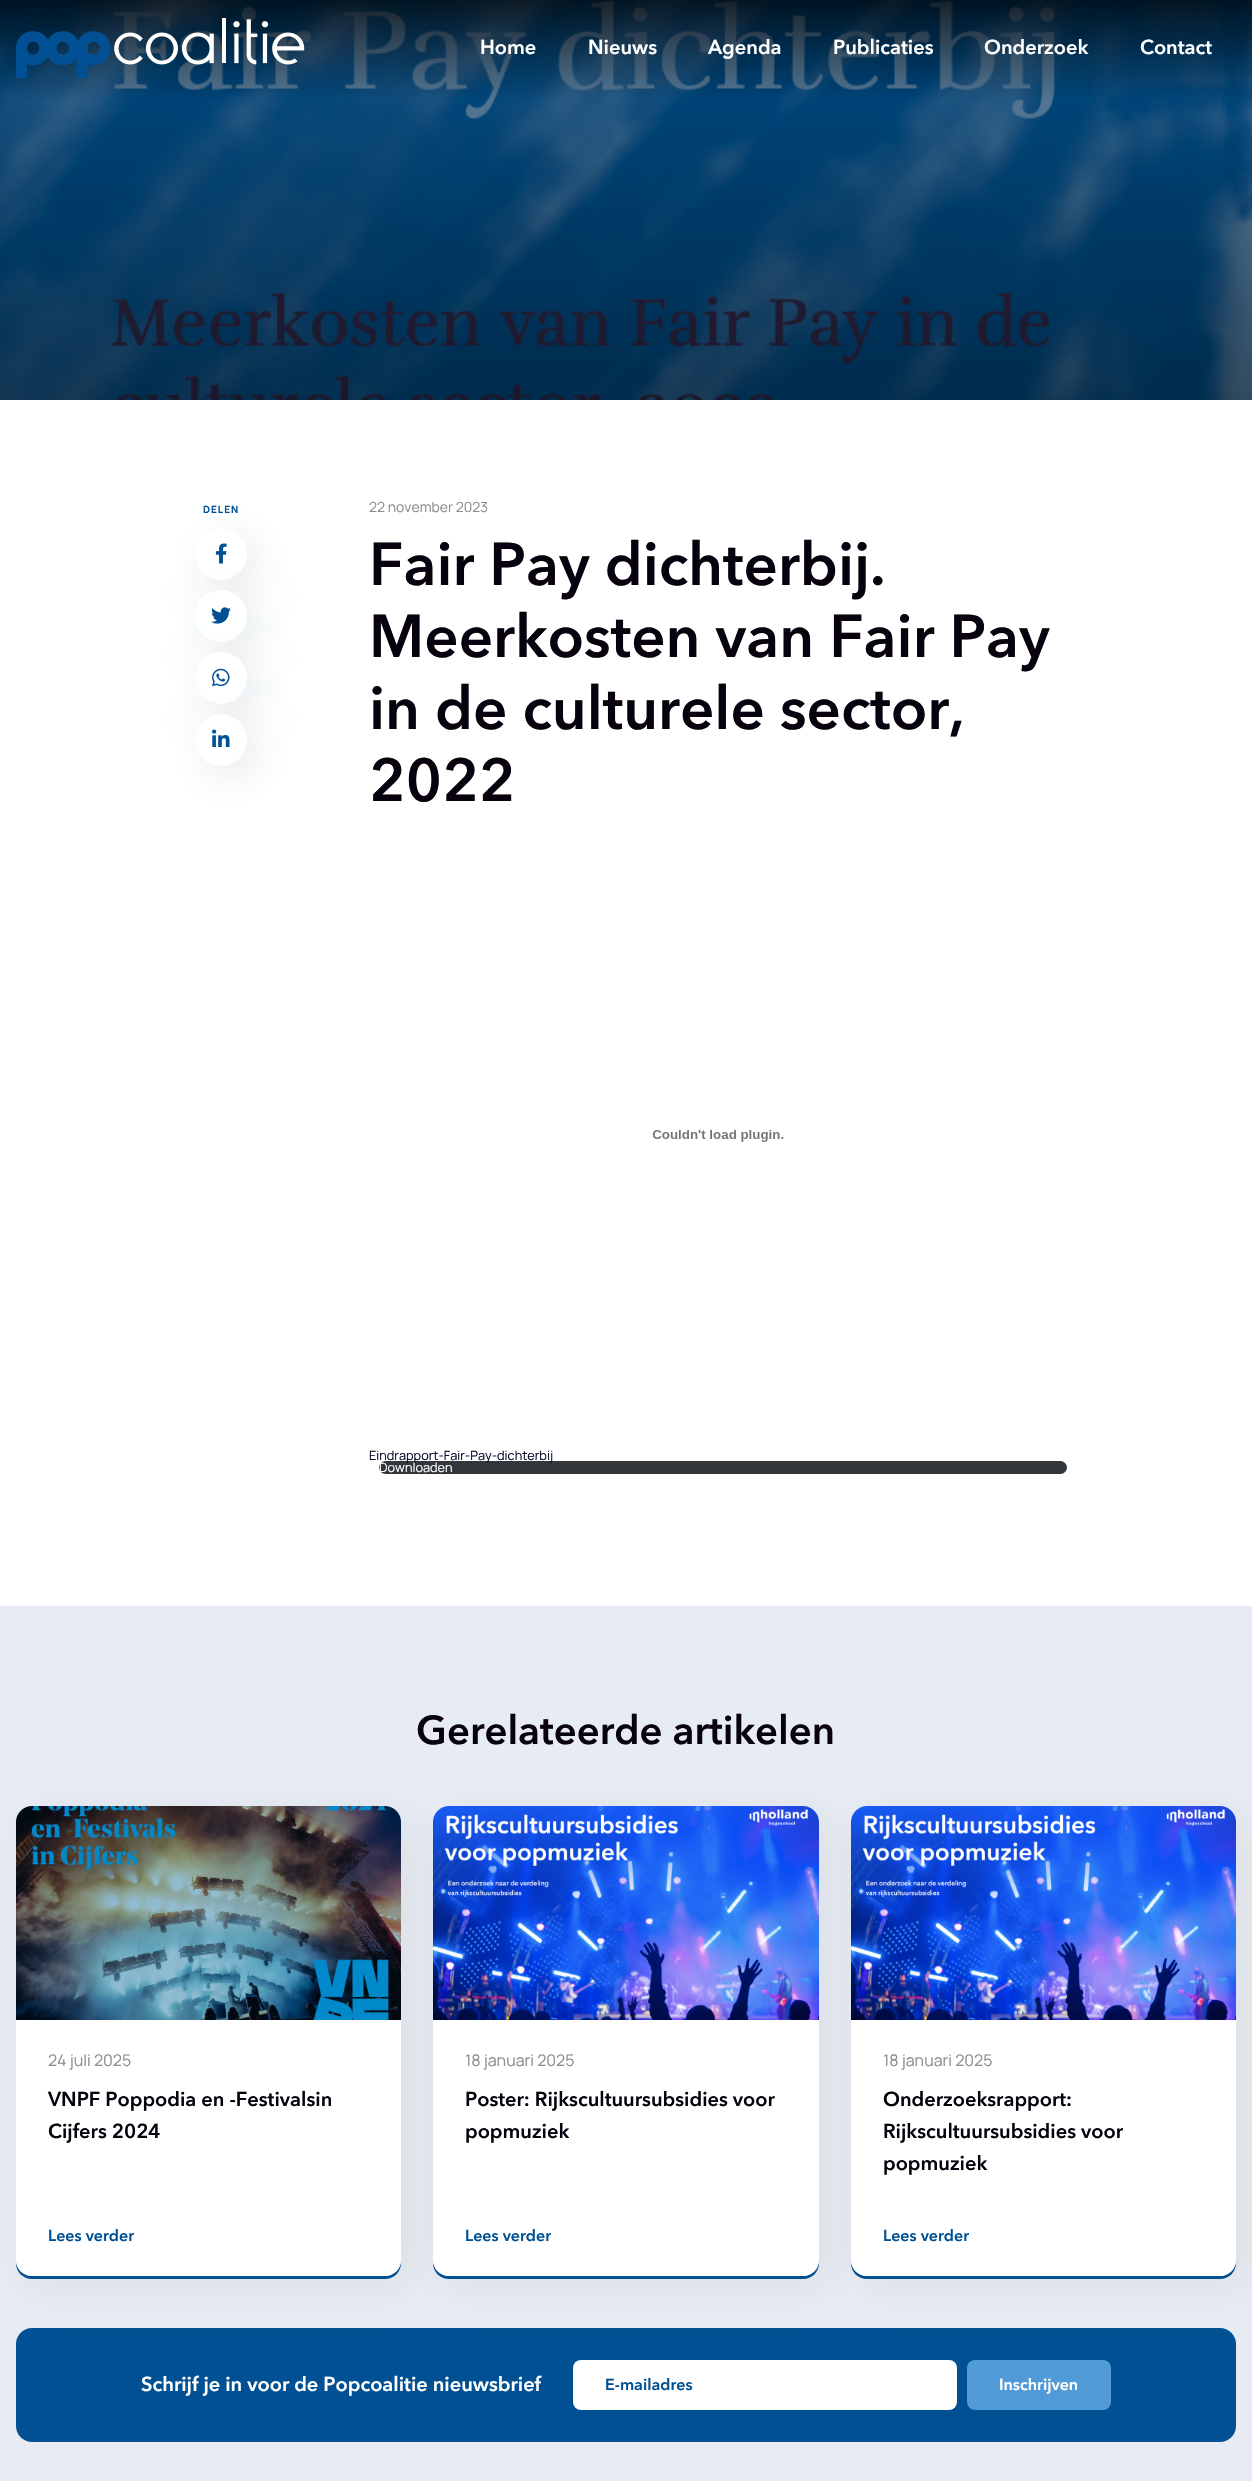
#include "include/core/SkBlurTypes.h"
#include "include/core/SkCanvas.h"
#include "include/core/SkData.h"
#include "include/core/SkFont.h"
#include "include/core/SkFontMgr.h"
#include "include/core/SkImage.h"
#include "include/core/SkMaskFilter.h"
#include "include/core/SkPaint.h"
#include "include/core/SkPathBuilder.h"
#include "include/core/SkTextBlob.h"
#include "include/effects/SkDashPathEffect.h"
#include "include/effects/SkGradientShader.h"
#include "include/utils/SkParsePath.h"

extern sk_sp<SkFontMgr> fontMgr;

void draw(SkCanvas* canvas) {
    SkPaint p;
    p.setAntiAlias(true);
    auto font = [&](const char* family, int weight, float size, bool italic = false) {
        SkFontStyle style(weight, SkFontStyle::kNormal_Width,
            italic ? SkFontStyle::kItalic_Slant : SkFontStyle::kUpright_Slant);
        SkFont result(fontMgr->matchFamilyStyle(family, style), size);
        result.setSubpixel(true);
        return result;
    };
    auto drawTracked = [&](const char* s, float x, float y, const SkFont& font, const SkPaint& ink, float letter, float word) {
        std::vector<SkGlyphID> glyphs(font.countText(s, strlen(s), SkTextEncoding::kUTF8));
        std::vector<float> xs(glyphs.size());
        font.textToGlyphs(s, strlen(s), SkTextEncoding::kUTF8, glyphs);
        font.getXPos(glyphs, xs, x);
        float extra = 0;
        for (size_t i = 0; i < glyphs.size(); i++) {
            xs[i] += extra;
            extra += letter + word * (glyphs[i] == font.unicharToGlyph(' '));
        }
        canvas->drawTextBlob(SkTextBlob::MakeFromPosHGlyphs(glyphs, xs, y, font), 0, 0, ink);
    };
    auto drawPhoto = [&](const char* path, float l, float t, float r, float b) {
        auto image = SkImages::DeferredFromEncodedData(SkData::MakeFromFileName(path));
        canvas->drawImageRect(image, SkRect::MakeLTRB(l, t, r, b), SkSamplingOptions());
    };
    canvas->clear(0xFFFFFFFF);
    drawPhoto("media/2.png", 0, 0, 1252, 400);
    drawPhoto("media/1.png", 16, 18, 305, 78);
    auto font1 = font("Avenir Next", 600, 20);
    p.setColor(0xFFFFFFFF);
    {
        const struct { const char* s; float x, y; } items[] = {
            {"Home", 480, 54},
            {"Nieuws", 588, 54},
            {"Agenda", 708, 54},
            {"Publicaties", 833, 54},
            {"Onderzoek", 984, 54},
            {"Contact", 1140, 54},
        };
        for (auto [s, x, y] : items) {
            canvas->drawString(s, x, y, font1, p);
        }
    }
    p.setColor(0x1A021732);
    p.setMaskFilter(SkMaskFilter::MakeBlur(kNormal_SkBlurStyle, 20));
    canvas->drawRoundRect(SkRect::MakeLTRB(205, 538, 257, 590), 26, 26, p);
    p.setMaskFilter(nullptr);
    p.setColor(0xFFFFFFFF);
    canvas->drawCircle(221, 554, 26, p);
    drawPhoto("media/3.png", 215, 543, 227, 564);
    auto font2 = font("Manrope", 700, 10);
    p.setColor(0xFF005093);
    drawTracked("DELEN", 203, 513, font2, p, 1, 0);
    p.setColor(0x1A021732);
    p.setMaskFilter(SkMaskFilter::MakeBlur(kNormal_SkBlurStyle, 20));
    canvas->drawRoundRect(SkRect::MakeLTRB(205, 600, 257, 652), 26, 26, p);
    p.setMaskFilter(nullptr);
    p.setColor(0xFFFFFFFF);
    canvas->drawCircle(221, 616, 26, p);
    drawPhoto("media/4.png", 211, 607, 231, 624);
    p.setColor(0x1A021732);
    p.setMaskFilter(SkMaskFilter::MakeBlur(kNormal_SkBlurStyle, 20));
    canvas->drawRoundRect(SkRect::MakeLTRB(205, 662, 257, 714), 26, 26, p);
    p.setMaskFilter(nullptr);
    p.setColor(0xFFFFFFFF);
    canvas->drawCircle(221, 678, 26, p);
    drawPhoto("media/5.png", 212, 668, 230, 687);
    p.setColor(0x1A021732);
    p.setMaskFilter(SkMaskFilter::MakeBlur(kNormal_SkBlurStyle, 20));
    canvas->drawRoundRect(SkRect::MakeLTRB(205, 724, 257, 776), 26, 26, p);
    p.setMaskFilter(nullptr);
    p.setColor(0xFFFFFFFF);
    canvas->drawCircle(221, 740, 26, p);
    drawPhoto("media/6.png", 212, 729, 230, 747);
    auto font3 = font("Manrope", 400, 14);
    p.setColor(0xFF8E8C90);
    canvas->drawString("22 november 2023", 369, 512, font3, p);
    auto font4 = font("Avenir Next", 600, 60);
    p.setColor(0xFF07020D);
    {
        const struct { const char* s; float x, y; } items[] = {
            {"Fair Pay dichterbij.", 369, 585},
            {"Meerkosten van Fair Pay", 369, 657},
            {"in de culturele sector,", 369, 729},
            {"2022", 369, 801},
        };
        for (auto [s, x, y] : items) {
            canvas->drawString(s, x, y, font4, p);
        }
    }
    drawPhoto("media/7.png", 652, 1130, 784, 1142);
    p.setColor(0xFF32373C);
    canvas->drawRoundRect(SkRect::MakeLTRB(379, 1461, 1067, 1474), 6.5f, 6.5f, p);
    auto font5 = font("Manrope", 400, 12.75f);
    p.setColor(0xFF09092A);
    canvas->drawString("Eindrapport-Fair-Pay-dichterbij", 369, 1460, font5, p);
    p.setColor(0xFFFFFFFF);
    canvas->drawString("Downloaden", 379, 1472, font5, p);
    p.setColor(0xFFE6EBF4);
    canvas->drawRect(SkRect::MakeLTRB(0, 1606, 1252, 2481), p);
    auto font6 = font("Avenir Next", 600, 40);
    p.setColor(0xFF07020D);
    canvas->drawString("Gerelateerde artikelen", 416, 1744, font6, p);
    p.setColor(0xFF005093);
    canvas->drawRoundRect(SkRect::MakeLTRB(16, 2328, 1236, 2442), 16, 16, p);
    p.setColor(0x12593E14);
    p.setMaskFilter(SkMaskFilter::MakeBlur(kNormal_SkBlurStyle, 20));
    canvas->drawRoundRect(SkRect::MakeLTRB(26, 1816, 411, 2286), 16, 16, p);
    p.setMaskFilter(nullptr);
    p.setColor(0xFF005093);
    canvas->drawPath(SkPathBuilder().moveTo(16, 2260).lineTo(16, 2263).cubicTo(16, 2272, 23, 2279, 32, 2279).lineTo(385, 2279).cubicTo(394, 2279, 401, 2272, 401, 2263).lineTo(401, 2260).cubicTo(401, 2269, 394, 2276, 385, 2276).lineTo(32, 2276).cubicTo(23, 2276, 16, 2269, 16, 2260).close().detach(), p);
    p.setColor(0xFFFFFFFF);
    canvas->drawRoundRect(SkRect::MakeLTRB(16, 1806, 401, 2276), 16, 16, p);
    p.setColor(0x12593E14);
    p.setMaskFilter(SkMaskFilter::MakeBlur(kNormal_SkBlurStyle, 20));
    canvas->drawRoundRect(SkRect::MakeLTRB(443, 1816, 829, 2286), 16, 16, p);
    p.setMaskFilter(nullptr);
    drawPhoto("media/8.png", 16, 1806, 401, 2020);
    auto font7 = font("Manrope", 400, 16);
    p.setColor(0xFF8E8C90);
    canvas->drawString("24 juli 2025", 48, 2066, font7, p);
    p.setColor(0xFF07020D);
    canvas->drawString("VNPF Poppodia en -Festivalsin", 48, 2106, font1, p);
    canvas->drawString("Cijfers 2024", 48, 2138, font1, p);
    auto font8 = font("Avenir Next", 600, 16);
    p.setColor(0xFF005093);
    canvas->drawString("Lees verder", 48, 2241, font8, p);
    canvas->drawPath(SkPathBuilder().moveTo(433, 2260).lineTo(433, 2263).cubicTo(433, 2272, 440, 2279, 449, 2279).lineTo(803, 2279).cubicTo(812, 2279, 819, 2272, 819, 2263).lineTo(819, 2260).cubicTo(819, 2269, 812, 2276, 803, 2276).lineTo(449, 2276).cubicTo(440, 2276, 433, 2269, 433, 2260).close().detach(), p);
    p.setColor(0xFFFFFFFF);
    canvas->drawRoundRect(SkRect::MakeLTRB(433, 1806, 819, 2276), 16, 16, p);
    p.setColor(0x12593E14);
    p.setMaskFilter(SkMaskFilter::MakeBlur(kNormal_SkBlurStyle, 20));
    canvas->drawRoundRect(SkRect::MakeLTRB(861, 1816, 1246, 2286), 16, 16, p);
    p.setMaskFilter(nullptr);
    drawPhoto("media/9.png", 433, 1806, 819, 2020);
    p.setColor(0xFF8E8C90);
    canvas->drawString("18 januari 2025", 465, 2066, font7, p);
    p.setColor(0xFF07020D);
    canvas->drawString("Poster: Rijkscultuursubsidies voor", 465, 2106, font1, p);
    canvas->drawString("popmuziek", 465, 2138, font1, p);
    p.setColor(0xFF005093);
    canvas->drawString("Lees verder", 465, 2241, font8, p);
    canvas->drawPath(SkPathBuilder().moveTo(851, 2260).lineTo(851, 2263).cubicTo(851, 2272, 858, 2279, 867, 2279).lineTo(1220, 2279).cubicTo(1229, 2279, 1236, 2272, 1236, 2263).lineTo(1236, 2260).cubicTo(1236, 2269, 1229, 2276, 1220, 2276).lineTo(867, 2276).cubicTo(858, 2276, 851, 2269, 851, 2260).close().detach(), p);
    p.setColor(0xFFFFFFFF);
    canvas->drawRoundRect(SkRect::MakeLTRB(851, 1806, 1236, 2276), 16, 16, p);
    drawPhoto("media/10.png", 851, 1806, 1236, 2020);
    p.setColor(0xFF8E8C90);
    canvas->drawString("18 januari 2025", 883, 2066, font7, p);
    p.setColor(0xFF07020D);
    {
        const struct { const char* s; float x, y; } items[] = {
            {"Onderzoeksrapport:", 883, 2106},
            {"Rijkscultuursubsidies voor", 883, 2138},
            {"popmuziek", 883, 2170},
        };
        for (auto [s, x, y] : items) {
            canvas->drawString(s, x, y, font1, p);
        }
    }
    p.setColor(0xFF005093);
    canvas->drawString("Lees verder", 883, 2241, font8, p);
    p.setColor(0xFFFFFFFF);
    canvas->drawString("Schrijf je in voor de Popcoalitie nieuwsbrief", 141, 2391, font1, p);
    canvas->drawRoundRect(SkRect::MakeLTRB(573, 2360, 957, 2410), 8, 8, p);
    p.setColor(0xFF005093);
    canvas->drawString("E-mailadres", 605, 2390, font8, p);
    p.setColor(0xFF519AD8);
    canvas->drawRoundRect(SkRect::MakeLTRB(967, 2360, 1111, 2410), 8, 8, p);
    p.setColor(0xFFFFFFFF);
    canvas->drawString("Inschrijven", 999, 2390, font8, p);
}
